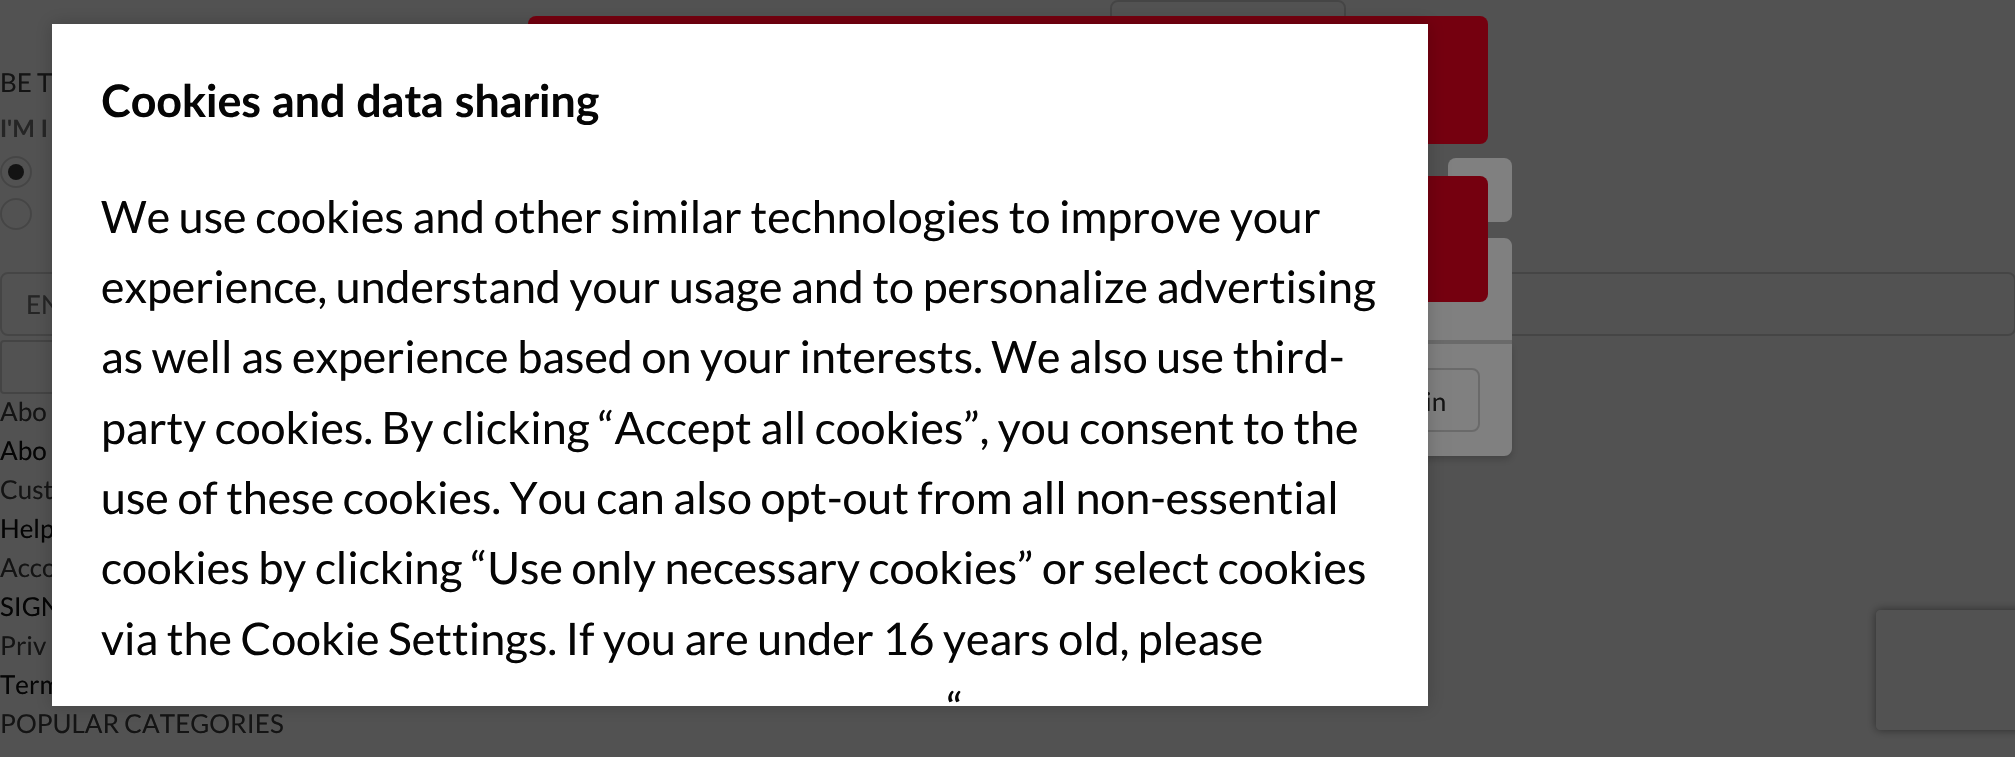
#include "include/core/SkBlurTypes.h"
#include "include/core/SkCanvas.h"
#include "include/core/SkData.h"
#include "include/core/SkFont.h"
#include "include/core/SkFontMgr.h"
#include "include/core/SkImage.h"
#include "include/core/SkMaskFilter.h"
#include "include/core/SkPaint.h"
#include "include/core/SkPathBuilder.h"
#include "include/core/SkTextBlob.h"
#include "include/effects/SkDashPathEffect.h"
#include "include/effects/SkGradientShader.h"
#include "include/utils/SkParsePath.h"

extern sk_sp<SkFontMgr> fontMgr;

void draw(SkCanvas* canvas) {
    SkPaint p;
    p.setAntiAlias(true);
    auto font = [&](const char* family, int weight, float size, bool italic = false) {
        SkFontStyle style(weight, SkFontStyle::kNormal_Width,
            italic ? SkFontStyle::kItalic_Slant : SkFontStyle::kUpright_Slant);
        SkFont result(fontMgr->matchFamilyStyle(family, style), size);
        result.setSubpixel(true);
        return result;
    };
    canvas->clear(0xFF525252);
    p.setStyle(SkPaint::kStroke_Style);
    p.setStrokeWidth(2);
    p.setColor(0xFF454545);
    canvas->drawRoundRect(SkRect::MakeLTRB(1111, 1, 1345, 63), 7, 7, p);
    auto font1 = font("Lato", 400, 26);
    p.setStyle(SkPaint::kFill_Style);
    p.setColor(0xFF141414);
    canvas->drawString("BE T", 0, 92, font1, p);
    auto font2 = font("Lato", 700, 24);
    p.setColor(0xFF252525);
    canvas->drawString("I'M I", 0, 137, font2, p);
    p.setStyle(SkPaint::kStroke_Style);
    p.setColor(0xFF454545);
    canvas->drawCircle(16, 172, 15, p);
    p.setStyle(SkPaint::kFill_Style);
    p.setColor(0xFF131313);
    canvas->drawCircle(16, 172, 8, p);
    p.setStyle(SkPaint::kStroke_Style);
    p.setColor(0xFF454545);
    canvas->drawCircle(16, 214, 15, p);
    canvas->drawRoundRect(SkRect::MakeLTRB(1, 273, 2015, 335), 7, 7, p);
    p.setStyle(SkPaint::kFill_Style);
    p.setColor(0xFF252525);
    canvas->drawString("EN", 26, 314, font1, p);
    p.setStyle(SkPaint::kStroke_Style);
    p.setColor(0xFF444444);
    canvas->drawRoundRect(SkRect::MakeLTRB(1, 341, 71, 393), 3, 3, p);
    p.setStyle(SkPaint::kFill_Style);
    p.setColor(0xFF141414);
    canvas->drawString("Abo", 0, 421, font1, p);
    p.setColor(0xFF050505);
    canvas->drawString("Abo", 0, 460, font1, p);
    p.setColor(0xFF141414);
    canvas->drawString("Cust", 0, 499, font1, p);
    p.setColor(0xFF050505);
    canvas->drawString("Help", 0, 538, font1, p);
    p.setColor(0xFF141414);
    canvas->drawString("Acco", 0, 577, font1, p);
    p.setColor(0xFF050505);
    canvas->drawString("SIGN", 0, 616, font1, p);
    p.setColor(0xFF141414);
    canvas->drawString("Priv", 0, 655, font1, p);
    p.setColor(0xFF050505);
    canvas->drawString("Term", 0, 694, font1, p);
    p.setColor(0xFF141414);
    canvas->drawString("POPULAR CATEGORIES", 0, 733, font1, p);
    p.setColor(0xFF75000F);
    canvas->drawRoundRect(SkRect::MakeLTRB(528, 16, 1488, 144), 8, 8, p);
    p.setColor(0xFF808080);
    canvas->drawRoundRect(SkRect::MakeLTRB(1448, 158, 1512, 222), 8, 8, p);
    p.setColor(0x29000000);
    p.setMaskFilter(SkMaskFilter::MakeBlur(kNormal_SkBlurStyle, 3));
    canvas->drawRoundRect(SkRect::MakeLTRB(504, 344, 1512, 460), 8, 8, p);
    p.setMaskFilter(nullptr);
    p.setColor(0xFF808080);
    canvas->drawPath(SkPathBuilder().moveTo(512, 238).lineTo(1504, 238).cubicTo(1508.5f, 238, 1512, 241.5f, 1512, 246).lineTo(1512, 340).lineTo(504, 340).lineTo(504, 246).cubicTo(504, 241.5f, 507.5f, 238, 512, 238).close().detach(), p);
    p.setColor(0xFF75000F);
    canvas->drawRoundRect(SkRect::MakeLTRB(528, 176, 1488, 302), 8, 8, p);
    p.setColor(0xFF808080);
    canvas->drawPath(SkPathBuilder().moveTo(504, 340).lineTo(1512, 340).lineTo(1512, 448).cubicTo(1512, 452.5f, 1508.5f, 456, 1504, 456).lineTo(512, 456).cubicTo(507.5f, 456, 504, 452.5f, 504, 448).close().detach(), p);
    p.setColor(0xFF6A6A6A);
    canvas->drawRect(SkRect::MakeLTRB(1428, 340, 1512, 344), p);
    p.setStyle(SkPaint::kStroke_Style);
    canvas->drawRoundRect(SkRect::MakeLTRB(1303, 369, 1479, 431), 7, 7, p);
    p.setStyle(SkPaint::kFill_Style);
    p.setColor(0x33000000);
    p.setMaskFilter(SkMaskFilter::MakeBlur(kNormal_SkBlurStyle, 8));
    canvas->drawRect(SkRect::MakeLTRB(52, 24, 1428, 706), p);
    p.setMaskFilter(nullptr);
    p.setColor(0xFF141414);
    canvas->drawString("in", 1425, 411, font1, p);
    p.setColor(0xFFFFFFFF);
    canvas->drawRect(SkRect::MakeLTRB(52, 24, 1428, 706), p);
    auto font3 = font("Lato", 700, 44.8f);
    p.setColor(0xFF050505);
    canvas->drawString("Cookies and data sharing", 101, 117, font3, p);
    auto font4 = font("Lato", 400, 44.8f);
    {
        const struct { const char* s; float x, y; } items[] = {
            {"We use cookies and other similar technologies to improve your", 101, 233},
            {"experience, understand your usage and to personalize advertising", 101, 303},
            {"as well as experience based on your interests. We also use third-", 101, 373},
            {"party cookies. By clicking “Accept all cookies”, you consent to the", 101, 444},
            {"use of these cookies. You can also opt-out from all non-essential", 101, 514},
            {"cookies by clicking “Use only necessary cookies” or select cookies", 101, 584},
            {"via the Cookie Settings. If you are under 16 years old, please", 101, 655},
            {"“", 947, 725},
        };
        for (auto [s, x, y] : items) {
            canvas->drawString(s, x, y, font4, p);
        }
    }
    canvas->save();
    canvas->clipPath(SkPathBuilder(SkPathFillType::kEvenOdd).moveTo(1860, 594).lineTo(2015, 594).lineTo(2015, 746).lineTo(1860, 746).close().moveTo(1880, 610).lineTo(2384, 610).cubicTo(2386, 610, 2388, 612, 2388, 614).lineTo(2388, 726).cubicTo(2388, 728, 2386, 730, 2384, 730).lineTo(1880, 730).cubicTo(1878, 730, 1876, 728, 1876, 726).lineTo(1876, 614).cubicTo(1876, 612, 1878, 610, 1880, 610).close().detach(), true);
    p.setColor(0xFF2B2B2B);
    p.setMaskFilter(SkMaskFilter::MakeBlur(kNormal_SkBlurStyle, 5));
    canvas->drawRoundRect(SkRect::MakeLTRB(1876, 610, 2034, 730), 4, 4, p);
    p.setMaskFilter(nullptr);
    canvas->restore();
}
